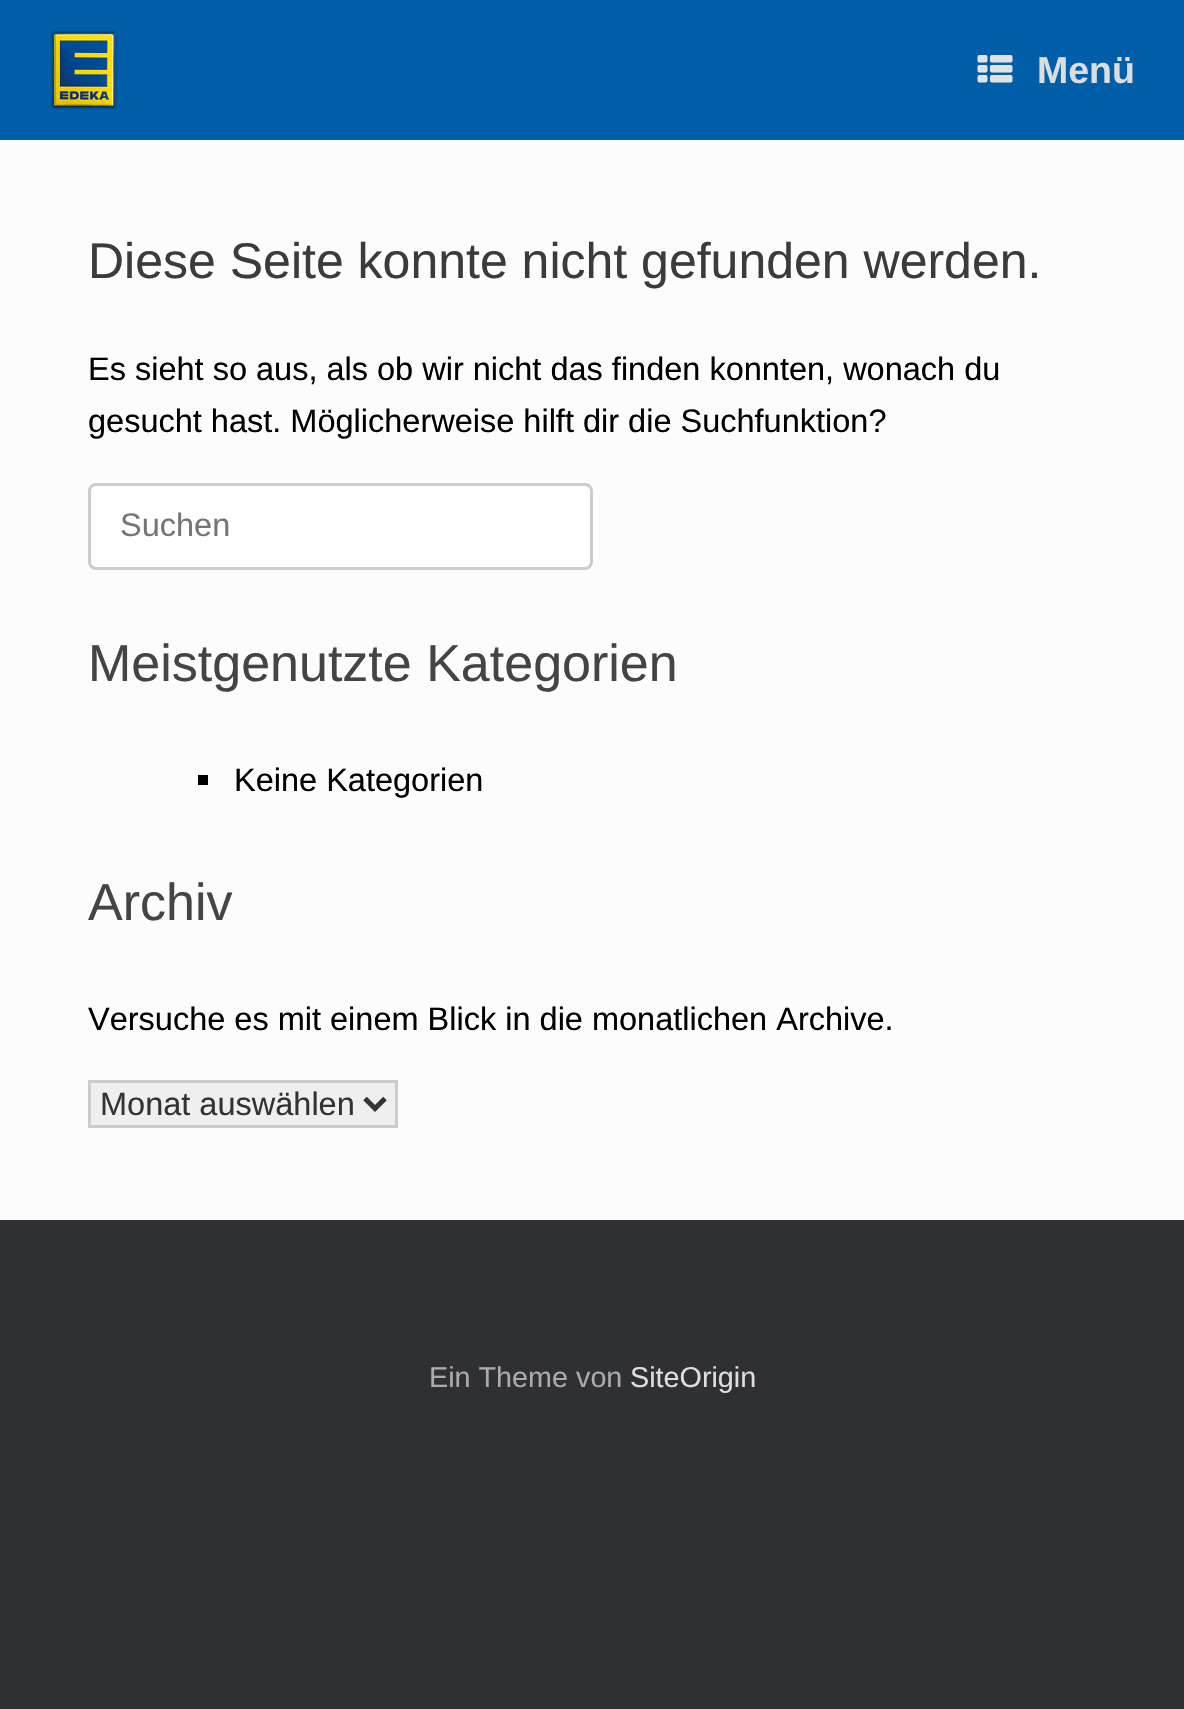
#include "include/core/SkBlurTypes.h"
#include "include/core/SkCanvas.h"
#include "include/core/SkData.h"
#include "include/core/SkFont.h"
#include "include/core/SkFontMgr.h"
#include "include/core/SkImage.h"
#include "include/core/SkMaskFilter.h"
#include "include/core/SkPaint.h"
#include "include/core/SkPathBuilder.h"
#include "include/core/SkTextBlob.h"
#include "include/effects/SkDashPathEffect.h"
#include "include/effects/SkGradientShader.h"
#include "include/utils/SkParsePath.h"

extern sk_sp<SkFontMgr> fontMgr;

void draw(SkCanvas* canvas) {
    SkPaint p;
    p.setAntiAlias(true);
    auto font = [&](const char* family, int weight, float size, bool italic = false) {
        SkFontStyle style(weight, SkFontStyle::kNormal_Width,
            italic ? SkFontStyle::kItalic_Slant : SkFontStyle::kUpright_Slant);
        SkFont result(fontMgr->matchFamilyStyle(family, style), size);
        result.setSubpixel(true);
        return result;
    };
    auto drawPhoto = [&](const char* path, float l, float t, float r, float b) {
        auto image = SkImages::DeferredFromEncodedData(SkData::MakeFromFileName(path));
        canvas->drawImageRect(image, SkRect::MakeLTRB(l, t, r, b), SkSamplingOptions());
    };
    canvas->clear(0xFF2F3033);
    p.setColor(0xFF005FA8);
    canvas->drawRect(SkRect::MakeLTRB(0, 0, 1184, 140), p);
    drawPhoto("media/1.png", 50, 30, 118, 110);
    drawPhoto("media/2.png", 977, 55, 1013, 83);
    auto font1 = font("Liberation Sans", 700, 37.5f);
    p.setColor(0xFFDDDDDD);
    canvas->drawString("Menü", 1037, 83, font1, p);
    p.setColor(0xFFFCFCFC);
    canvas->drawRect(SkRect::MakeLTRB(0, 140, 1184, 1220), p);
    auto font2 = font("Liberation Sans", 400, 50);
    p.setColor(0xFF3B3B3B);
    canvas->drawString("Diese Seite konnte nicht gefunden werden.", 88, 278, font2, p);
    auto font3 = font("Liberation Sans", 400, 32.5f);
    p.setColor(0xFF000000);
    canvas->drawString("Es sieht so aus, als ob wir nicht das finden konnten, wonach du", 88, 380, font3, p);
    canvas->drawString("gesucht hast. Möglicherweise hilft dir die Suchfunktion?", 88, 432, font3, p);
    p.setColor(0xFFFFFFFF);
    canvas->drawRoundRect(SkRect::MakeLTRB(89.5f, 484.5f, 591.5f, 568.5f), 6.5f, 6.5f, p);
    p.setStyle(SkPaint::kStroke_Style);
    p.setStrokeWidth(3);
    p.setColor(0xFFCCCCCC);
    canvas->drawRoundRect(SkRect::MakeLTRB(89.5f, 484.5f, 591.5f, 568.5f), 6.5f, 6.5f, p);
    p.setStyle(SkPaint::kFill_Style);
    p.setColor(0xFF757575);
    canvas->drawString("Suchen", 120, 536, font3, p);
    auto font4 = font("Liberation Sans", 400, 52);
    p.setColor(0xFF444444);
    canvas->drawString("Meistgenutzte Kategorien", 88, 681, font4, p);
    p.setColor(0xFF000000);
    canvas->drawRect(SkRect::MakeLTRB(198, 775, 208, 785), p);
    canvas->drawString("Keine Kategorien", 234, 791, font3, p);
    p.setColor(0xFF444444);
    canvas->drawString("Archiv", 88, 920, font4, p);
    p.setColor(0xFF000000);
    canvas->drawString("Versuche es mit einem Blick in die monatlichen Archive.", 88, 1030, font3, p);
    p.setColor(0xFFEFEFEF);
    canvas->drawRect(SkRect::MakeLTRB(89.5f, 1081.5f, 396.5f, 1126.5f), p);
    p.setStyle(SkPaint::kStroke_Style);
    p.setColor(0xFFCCCCCC);
    canvas->drawRect(SkRect::MakeLTRB(89.5f, 1081.5f, 396.5f, 1126.5f), p);
    p.setStrokeWidth(5);
    p.setColor(0xFF333333);
    canvas->drawPath(SkPathBuilder().moveTo(365, 1098.5f).lineTo(375, 1108.5f).lineTo(385, 1098.5f).detach(), p);
    p.setStyle(SkPaint::kFill_Style);
    canvas->drawString("Monat auswählen", 100, 1115, font3, p);
    auto font5 = font("Liberation Sans", 400, 28.75f);
    p.setColor(0xFFAAAAAA);
    canvas->drawString("Ein Theme von", 429, 1387, font5, p);
    p.setColor(0xFFDDDDDD);
    canvas->drawString("SiteOrigin", 630, 1387, font5, p);
}
